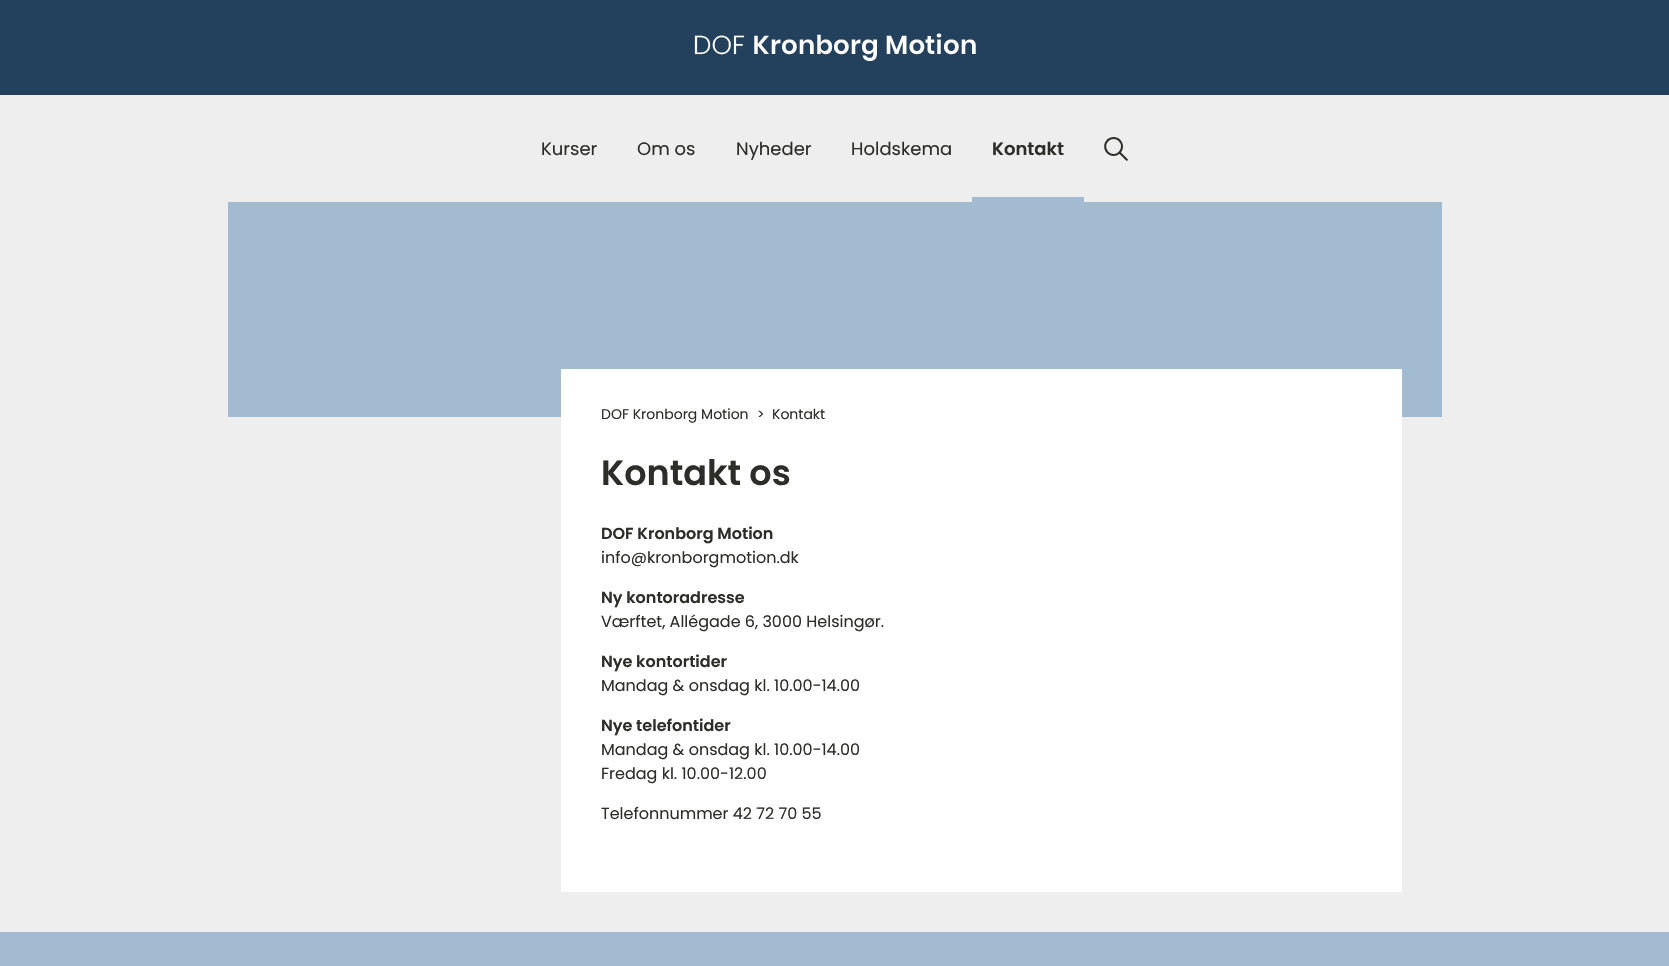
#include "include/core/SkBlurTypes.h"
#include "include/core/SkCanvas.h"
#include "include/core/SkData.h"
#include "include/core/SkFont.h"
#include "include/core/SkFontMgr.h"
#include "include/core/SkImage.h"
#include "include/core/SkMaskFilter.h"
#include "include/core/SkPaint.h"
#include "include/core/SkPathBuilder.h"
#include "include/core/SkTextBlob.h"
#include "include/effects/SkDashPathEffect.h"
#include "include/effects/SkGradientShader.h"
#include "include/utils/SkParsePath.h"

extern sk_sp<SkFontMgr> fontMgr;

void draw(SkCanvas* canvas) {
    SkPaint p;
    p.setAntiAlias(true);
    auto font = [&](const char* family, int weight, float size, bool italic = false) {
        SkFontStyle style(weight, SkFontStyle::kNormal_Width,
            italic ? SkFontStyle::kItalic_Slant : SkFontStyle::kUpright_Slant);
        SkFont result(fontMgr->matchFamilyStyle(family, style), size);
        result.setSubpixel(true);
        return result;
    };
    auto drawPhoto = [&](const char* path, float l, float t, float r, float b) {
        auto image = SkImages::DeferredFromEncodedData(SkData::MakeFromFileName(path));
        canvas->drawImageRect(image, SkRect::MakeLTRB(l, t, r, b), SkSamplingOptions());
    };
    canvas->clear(0xFFEEEEEE);
    p.setColor(0xFF23415D);
    canvas->drawRect(SkRect::MakeLTRB(0, 0, 1669, 95), p);
    drawPhoto("media/1.png", 694, 33, 976, 61);
    auto font1 = font("Poppins", 400, 18);
    p.setColor(0xFF2D2D2A);
    {
        const struct { const char* s; float x, y; } items[] = {
            {"Kurser", 541, 155},
            {"Om os", 637, 155},
            {"Nyheder", 736, 155},
            {"Holdskema", 851, 155},
        };
        for (auto [s, x, y] : items) {
            canvas->drawString(s, x, y, font1, p);
        }
    }
    p.setColor(0xFFA3BBD0);
    canvas->drawRect(SkRect::MakeLTRB(972, 197, 1084, 202), p);
    auto font2 = font("Poppins", 600, 18);
    p.setColor(0xFF2D2D2A);
    canvas->drawString("Kontakt", 992, 155, font2, p);
    drawPhoto("media/2.png", 1104, 137, 1128, 161);
    p.setColor(0xFFA3BBD0);
    canvas->drawRect(SkRect::MakeLTRB(228, 202, 1442, 417), p);
    p.setColor(0xFFFFFFFF);
    canvas->drawRect(SkRect::MakeLTRB(561, 369, 1402, 892), p);
    auto font3 = font("Poppins", 400, 14);
    p.setColor(0xFF2D2D2A);
    {
        const struct { const char* s; float x, y; } items[] = {
            {"DOF Kronborg Motion", 601, 419},
            {">", 757, 419},
            {"Kontakt", 772, 419},
        };
        for (auto [s, x, y] : items) {
            canvas->drawString(s, x, y, font3, p);
        }
    }
    auto font4 = font("Poppins", 600, 35);
    canvas->drawString("Kontakt os", 601, 485, font4, p);
    auto font5 = font("Poppins", 600, 16);
    canvas->drawString("DOF Kronborg Motion", 601, 539, font5, p);
    auto font6 = font("Poppins", 400, 16);
    canvas->drawString("info@kronborgmotion.dk", 601, 563, font6, p);
    canvas->drawString("Ny kontoradresse", 601, 603, font5, p);
    canvas->drawString("Værftet, Allégade 6, 3000 Helsingør.", 601, 627, font6, p);
    canvas->drawString("Nye kontortider", 601, 667, font5, p);
    canvas->drawString("Mandag & onsdag kl. 10.00-14.00", 601, 691, font6, p);
    canvas->drawString("Nye telefontider", 601, 731, font5, p);
    {
        const struct { const char* s; float x, y; } items[] = {
            {"Mandag & onsdag kl. 10.00-14.00", 601, 755},
            {"Fredag kl. 10.00-12.00", 601, 779},
            {"Telefonnummer 42 72 70 55", 601, 819},
        };
        for (auto [s, x, y] : items) {
            canvas->drawString(s, x, y, font6, p);
        }
    }
    p.setColor(0xFFA3BBD0);
    canvas->drawRect(SkRect::MakeLTRB(0, 932, 1669, 966), p);
}
